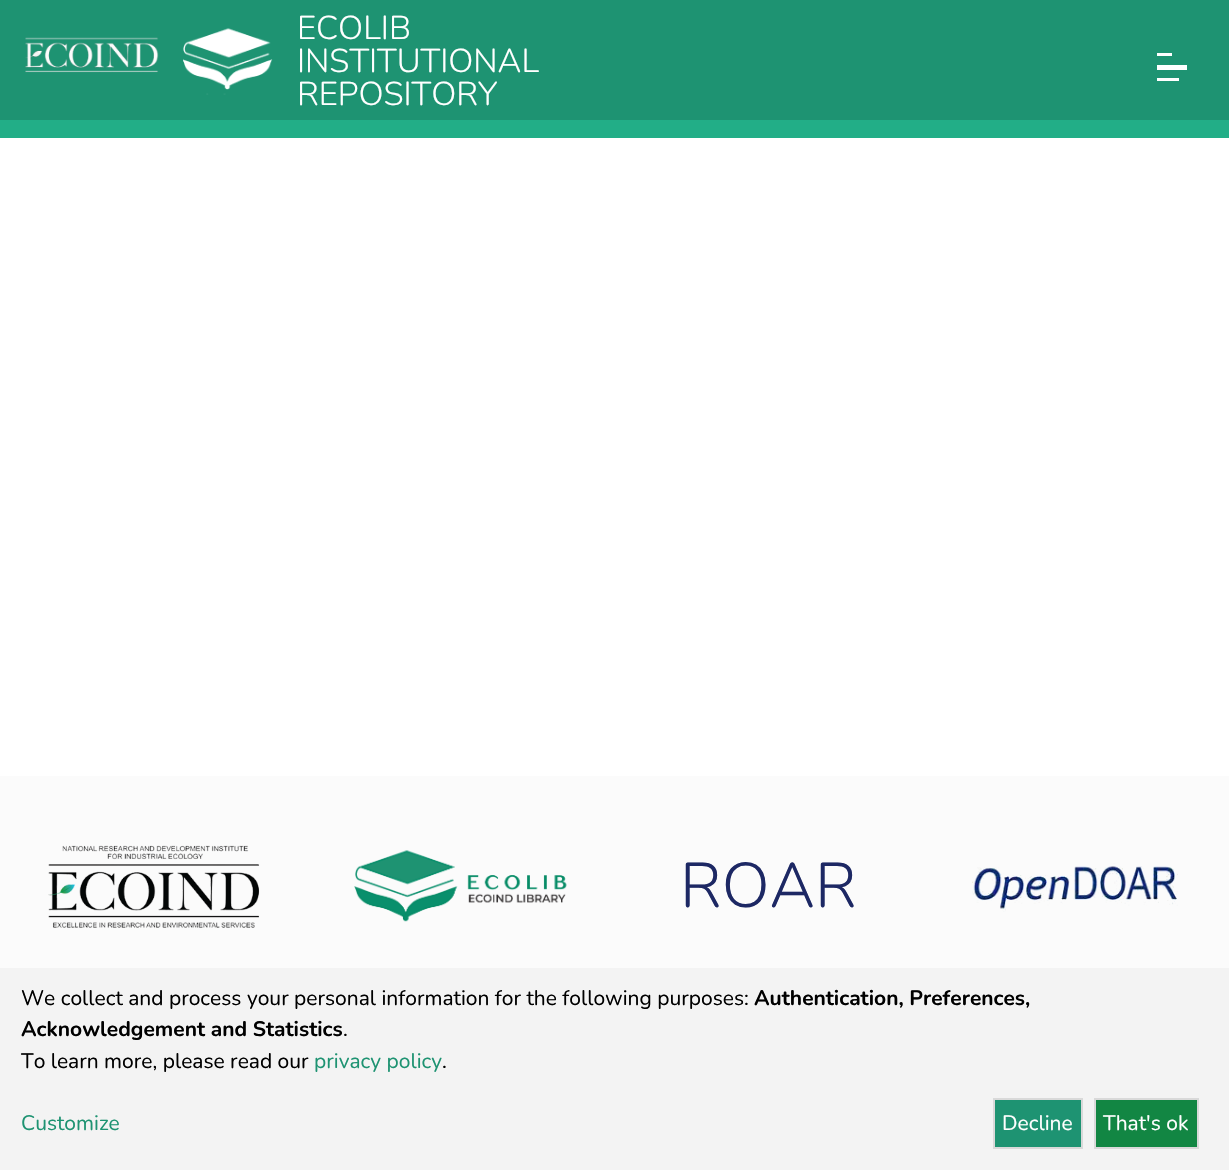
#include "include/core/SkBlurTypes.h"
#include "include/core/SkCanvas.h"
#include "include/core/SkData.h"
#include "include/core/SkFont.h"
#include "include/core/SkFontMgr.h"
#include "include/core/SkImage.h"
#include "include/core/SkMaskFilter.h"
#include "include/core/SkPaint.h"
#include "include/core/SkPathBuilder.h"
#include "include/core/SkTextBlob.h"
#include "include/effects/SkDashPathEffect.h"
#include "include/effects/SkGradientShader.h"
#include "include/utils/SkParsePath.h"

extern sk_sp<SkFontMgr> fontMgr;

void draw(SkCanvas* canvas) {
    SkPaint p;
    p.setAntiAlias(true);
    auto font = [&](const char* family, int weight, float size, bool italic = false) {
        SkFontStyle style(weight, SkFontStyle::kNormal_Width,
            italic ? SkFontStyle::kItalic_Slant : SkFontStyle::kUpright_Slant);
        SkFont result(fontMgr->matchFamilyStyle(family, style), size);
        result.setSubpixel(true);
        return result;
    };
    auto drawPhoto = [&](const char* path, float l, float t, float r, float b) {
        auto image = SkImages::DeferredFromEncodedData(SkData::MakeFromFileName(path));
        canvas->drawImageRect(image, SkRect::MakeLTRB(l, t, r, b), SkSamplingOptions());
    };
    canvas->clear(0xFFFFFFFF);
    p.setColor(0xFF1E9372);
    canvas->drawRect(SkRect::MakeLTRB(0, 0, 1229, 120), p);
    p.setColor(0xFF22AE87);
    canvas->drawRect(SkRect::MakeLTRB(0, 120, 1229, 138), p);
    drawPhoto("media/1.png", 25, 37, 159, 73);
    drawPhoto("media/2.png", 183, 28, 273, 95);
    auto font1 = font("Nunito", 300, 33);
    p.setColor(0xFFFFFFFF);
    {
        const struct { const char* s; float x, y; } items[] = {
            {"ECOLIB", 297, 39},
            {"INSTITUTIONAL", 297, 72},
            {"REPOSITORY", 297, 105},
        };
        for (auto [s, x, y] : items) {
            canvas->drawString(s, x, y, font1, p);
        }
    }
    {
        const struct { float l, t, r, b; SkColor color; } items[] = {
            {1157, 53, 1172, 56, 0xFFFFFFFF},
            {1157, 65, 1187, 70, 0xFFFFFFFF},
            {1157, 78, 1179, 81, 0xFFFFFFFF},
            {0, 776, 1229, 968, 0xFFFBFBFB},
        };
        for (auto [l, t, r, b, color] : items) {
            p.setColor(color);
            canvas->drawRect(SkRect::MakeLTRB(l, t, r, b), p);
        }
    }
    drawPhoto("media/3.png", 48, 845, 260, 928);
    drawPhoto("media/4.png", 354, 850, 567, 922);
    auto font2 = font("Nunito", 300, 63);
    p.setColor(0xFF1D2864);
    canvas->drawString("ROAR", 680, 907, font2, p);
    drawPhoto("media/5.png", 972, 863, 1178, 912);
    p.setColor(0xFFF3F3F3);
    canvas->drawRect(SkRect::MakeLTRB(0, 968, 1229, 1170), p);
    auto font3 = font("Nunito", 400, 21);
    p.setColor(0xFF000000);
    canvas->drawString("We collect and process your personal information for the following purposes:", 21, 1005, font3, p);
    auto font4 = font("Nunito", 700, 21);
    canvas->drawString("Authentication, Preferences,", 754, 1005, font4, p);
    canvas->drawString("Acknowledgement and Statistics", 21, 1036, font4, p);
    canvas->drawString(".", 343, 1036, font3, p);
    canvas->drawString("To learn more, please read our", 21, 1068, font3, p);
    p.setColor(0xFF1E9372);
    canvas->drawString("privacy policy", 314, 1068, font3, p);
    p.setColor(0xFF000000);
    canvas->drawString(".", 442, 1068, font3, p);
    p.setColor(0xFF1E9372);
    canvas->drawString("Customize", 21, 1130, font3, p);
    canvas->drawRect(SkRect::MakeLTRB(994, 1099, 1082, 1148), p);
    p.setStyle(SkPaint::kStroke_Style);
    p.setStrokeWidth(2);
    p.setColor(0xFFD9D9D9);
    canvas->drawRect(SkRect::MakeLTRB(994, 1099, 1082, 1148), p);
    p.setStyle(SkPaint::kFill_Style);
    p.setColor(0xFFFFFFFF);
    canvas->drawString("Decline", 1002, 1130, font3, p);
    p.setColor(0xFF128643);
    canvas->drawRect(SkRect::MakeLTRB(1095, 1099, 1198, 1148), p);
    p.setStyle(SkPaint::kStroke_Style);
    p.setColor(0xFFD9D9D9);
    canvas->drawRect(SkRect::MakeLTRB(1095, 1099, 1198, 1148), p);
    p.setStyle(SkPaint::kFill_Style);
    p.setColor(0xFFFFFFFF);
    canvas->drawString("That's ok", 1103, 1130, font3, p);
}
